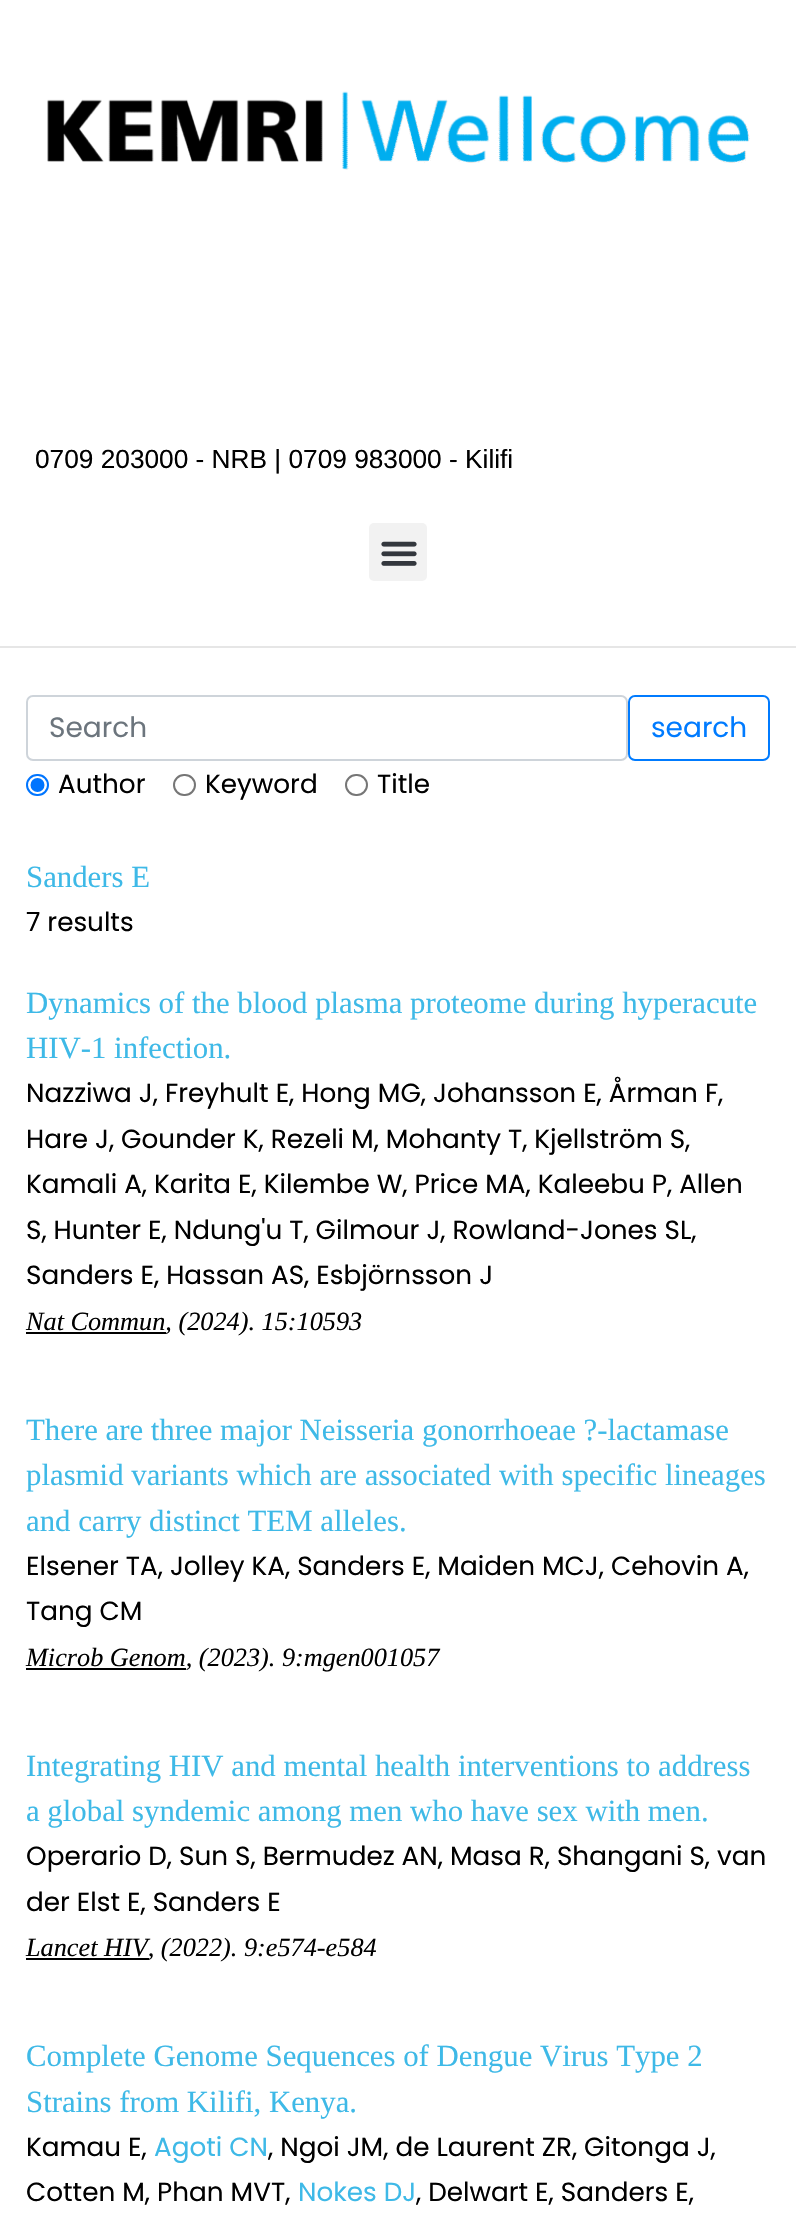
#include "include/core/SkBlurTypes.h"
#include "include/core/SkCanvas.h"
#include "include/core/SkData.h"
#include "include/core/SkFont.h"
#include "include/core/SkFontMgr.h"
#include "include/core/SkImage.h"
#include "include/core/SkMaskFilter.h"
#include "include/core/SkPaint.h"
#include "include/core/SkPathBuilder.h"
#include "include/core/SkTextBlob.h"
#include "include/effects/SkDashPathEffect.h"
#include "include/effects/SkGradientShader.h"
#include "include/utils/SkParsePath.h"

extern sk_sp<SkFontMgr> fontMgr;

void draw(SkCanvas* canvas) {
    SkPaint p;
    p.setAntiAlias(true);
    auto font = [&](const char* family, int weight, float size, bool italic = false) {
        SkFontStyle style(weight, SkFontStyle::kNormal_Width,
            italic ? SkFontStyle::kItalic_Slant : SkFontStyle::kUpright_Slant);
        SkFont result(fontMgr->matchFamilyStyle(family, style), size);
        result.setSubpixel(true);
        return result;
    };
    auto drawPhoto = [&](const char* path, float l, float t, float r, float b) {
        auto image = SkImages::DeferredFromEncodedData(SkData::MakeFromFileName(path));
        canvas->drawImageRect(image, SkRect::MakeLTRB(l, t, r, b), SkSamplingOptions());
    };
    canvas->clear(0xFFFFFFFF);
    drawPhoto("media/1.png", 47, 91, 750, 170);
    auto font1 = font("Liberation Sans", 400, 26.25f);
    p.setColor(0xFF000000);
    canvas->drawString("0709 203000 - NRB | 0709 983000 - Kilifi", 35, 468, font1, p);
    p.setColor(0xFFF2F2F2);
    canvas->drawRoundRect(SkRect::MakeLTRB(369, 523, 427, 581), 5, 5, p);
    drawPhoto("media/2.png", 381, 541, 417, 566);
    p.setColor(0xFFE6E6E6);
    canvas->drawRect(SkRect::MakeLTRB(0, 646, 796, 648), p);
    p.setStyle(SkPaint::kStroke_Style);
    p.setStrokeWidth(2);
    p.setColor(0xFFCED4DA);
    canvas->drawRoundRect(SkRect::MakeLTRB(27, 696, 627, 760), 6, 6, p);
    auto font2 = font("Poppins", 400, 28);
    p.setStyle(SkPaint::kFill_Style);
    p.setColor(0xFF6C757D);
    canvas->drawString("Search", 49, 737, font2, p);
    p.setStyle(SkPaint::kStroke_Style);
    p.setColor(0xFF007BFF);
    canvas->drawRoundRect(SkRect::MakeLTRB(629, 696, 769, 760), 6, 6, p);
    p.setStyle(SkPaint::kFill_Style);
    canvas->drawString("search", 651, 737, font2, p);
    p.setStyle(SkPaint::kStroke_Style);
    p.setColor(0xFF0075FF);
    canvas->drawRoundRect(SkRect::MakeLTRB(27, 775, 48, 795), 10, 10, p);
    p.setStyle(SkPaint::kFill_Style);
    canvas->drawCircle(37.5f, 785, 7, p);
    auto font3 = font("Poppins", 400, 26.25f);
    p.setColor(0xFF000000);
    canvas->drawString("Author", 58, 793, font3, p);
    p.setStyle(SkPaint::kStroke_Style);
    p.setColor(0xFF767676);
    canvas->drawRoundRect(SkRect::MakeLTRB(174, 775, 195, 795), 10, 10, p);
    p.setStyle(SkPaint::kFill_Style);
    p.setColor(0xFF000000);
    canvas->drawString("Keyword", 205, 793, font3, p);
    p.setStyle(SkPaint::kStroke_Style);
    p.setColor(0xFF767676);
    canvas->drawRoundRect(SkRect::MakeLTRB(346, 775, 367, 795), 10, 10, p);
    p.setStyle(SkPaint::kFill_Style);
    p.setColor(0xFF000000);
    canvas->drawString("Title", 377, 793, font3, p);
    auto font4 = font("Liberation Serif", 400, 30.8f);
    p.setColor(0xFF3EB9E7);
    canvas->drawString("Sanders E", 26, 887, font4, p);
    p.setColor(0xFF000000);
    canvas->drawString("7 results", 26, 931, font3, p);
    p.setColor(0xFF3EB9E7);
    canvas->drawString("Dynamics of the blood plasma proteome during hyperacute", 26, 1013, font4, p);
    canvas->drawString("HIV-1 infection.", 26, 1058, font4, p);
    p.setColor(0xFF000000);
    {
        const struct { const char* s; float x, y; } items[] = {
            {"Nazziwa J, Freyhult E, Hong MG, Johansson E, Årman F,", 26, 1102},
            {"Hare J, Gounder K, Rezeli M, Mohanty T, Kjellström S,", 26, 1148},
            {"Kamali A, Karita E, Kilembe W, Price MA, Kaleebu P, Allen", 26, 1193},
            {"S, Hunter E, Ndung'u T, Gilmour J, Rowland-Jones SL,", 26, 1239},
            {"Sanders E, Hassan AS, Esbjörnsson J", 26, 1284},
        };
        for (auto [s, x, y] : items) {
            canvas->drawString(s, x, y, font3, p);
        }
    }
    canvas->drawRect(SkRect::MakeLTRB(26, 1332, 166, 1334), p);
    auto font5 = font("Liberation Serif", 400, 26.25f, true);
    canvas->drawString("Nat Commun, (2024). 15:10593", 26, 1330, font5, p);
    p.setColor(0xFF3EB9E7);
    {
        const struct { const char* s; float x, y; } items[] = {
            {"There are three major Neisseria gonorrhoeae ?-lactamase", 26, 1440},
            {"plasmid variants which are associated with specific lineages", 26, 1485},
            {"and carry distinct TEM alleles.", 26, 1531},
        };
        for (auto [s, x, y] : items) {
            canvas->drawString(s, x, y, font4, p);
        }
    }
    p.setColor(0xFF000000);
    canvas->drawString("Elsener TA, Jolley KA, Sanders E, Maiden MCJ, Cehovin A,", 26, 1575, font3, p);
    canvas->drawString("Tang CM", 26, 1620, font3, p);
    canvas->drawRect(SkRect::MakeLTRB(26, 1668, 186, 1670), p);
    canvas->drawString("Microb Genom, (2023). 9:mgen001057", 26, 1666, font5, p);
    p.setColor(0xFF3EB9E7);
    canvas->drawString("Integrating HIV and mental health interventions to address", 26, 1776, font4, p);
    canvas->drawString("a global syndemic among men who have sex with men.", 26, 1821, font4, p);
    p.setColor(0xFF000000);
    canvas->drawString("Operario D, Sun S, Bermudez AN, Masa R, Shangani S, van", 26, 1865, font3, p);
    canvas->drawString("der Elst E, Sanders E", 26, 1911, font3, p);
    canvas->drawRect(SkRect::MakeLTRB(26, 1958, 149, 1960), p);
    canvas->drawString("Lancet HIV, (2022). 9:e574-e584", 26, 1956, font5, p);
    p.setColor(0xFF3EB9E7);
    canvas->drawString("Complete Genome Sequences of Dengue Virus Type 2", 26, 2066, font4, p);
    canvas->drawString("Strains from Kilifi, Kenya.", 26, 2112, font4, p);
    p.setColor(0xFF000000);
    canvas->drawString("Kamau E,", 26, 2156, font3, p);
    p.setColor(0xFF3EB9E7);
    canvas->drawString("Agoti CN", 154, 2156, font3, p);
    p.setColor(0xFF000000);
    canvas->drawString(", Ngoi JM, de Laurent ZR, Gitonga J,", 268, 2156, font3, p);
    canvas->drawString("Cotten M, Phan MVT,", 26, 2201, font3, p);
    p.setColor(0xFF3EB9E7);
    canvas->drawString("Nokes DJ", 298, 2201, font3, p);
    p.setColor(0xFF000000);
    canvas->drawString(", Delwart E, Sanders E,", 416, 2201, font3, p);
}
